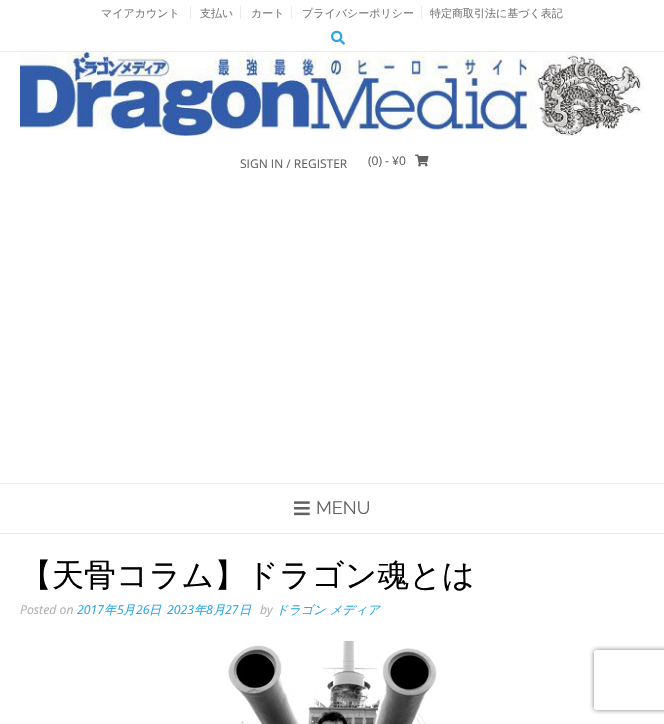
#include "include/core/SkBlurTypes.h"
#include "include/core/SkCanvas.h"
#include "include/core/SkData.h"
#include "include/core/SkFont.h"
#include "include/core/SkFontMgr.h"
#include "include/core/SkImage.h"
#include "include/core/SkMaskFilter.h"
#include "include/core/SkPaint.h"
#include "include/core/SkPathBuilder.h"
#include "include/core/SkTextBlob.h"
#include "include/effects/SkDashPathEffect.h"
#include "include/effects/SkGradientShader.h"
#include "include/utils/SkParsePath.h"

extern sk_sp<SkFontMgr> fontMgr;

void draw(SkCanvas* canvas) {
    SkPaint p;
    p.setAntiAlias(true);
    auto font = [&](const char* family, int weight, float size, bool italic = false) {
        SkFontStyle style(weight, SkFontStyle::kNormal_Width,
            italic ? SkFontStyle::kItalic_Slant : SkFontStyle::kUpright_Slant);
        SkFont result(fontMgr->matchFamilyStyle(family, style), size);
        result.setSubpixel(true);
        return result;
    };
    auto drawPhoto = [&](const char* path, float l, float t, float r, float b) {
        auto image = SkImages::DeferredFromEncodedData(SkData::MakeFromFileName(path));
        canvas->drawImageRect(image, SkRect::MakeLTRB(l, t, r, b), SkSamplingOptions());
    };
    canvas->clear(0xFFFFFFFF);
    {
        const struct { float l, t, r, b; SkColor color; } items[] = {
            {0, 533, 664, 534, 0xFFEBEBEB},
            {0, 51, 664, 52, 0xFFEBEBEB},
            {190, 6, 191, 19, 0xFFEBEBEB},
        };
        for (auto [l, t, r, b, color] : items) {
            p.setColor(color);
            canvas->drawRect(SkRect::MakeLTRB(l, t, r, b), p);
        }
    }
    auto font1 = font("WenQuanYi Zen Hei", 500, 11);
    p.setColor(0xFF777777);
    canvas->drawString("マイアカウント", 101, 17, font1, p);
    p.setColor(0xFFEBEBEB);
    canvas->drawRect(SkRect::MakeLTRB(240, 6, 241, 19), p);
    p.setColor(0xFF777777);
    canvas->drawString("支払い", 200, 17, font1, p);
    p.setColor(0xFFEBEBEB);
    canvas->drawRect(SkRect::MakeLTRB(291, 6, 292, 19), p);
    p.setColor(0xFF777777);
    canvas->drawString("カート", 251, 17, font1, p);
    p.setColor(0xFFEBEBEB);
    canvas->drawRect(SkRect::MakeLTRB(421, 6, 422, 19), p);
    p.setColor(0xFF777777);
    canvas->drawString("プライバシーポリシー", 302, 17, font1, p);
    canvas->drawString("特定商取引法に基づく表記", 430, 17, font1, p);
    drawPhoto("media/1.png", 331, 30, 345, 45);
    drawPhoto("media/2.png", 20, 52, 644, 136);
    auto font2 = font("Open Sans", 400, 12);
    p.setColor(0xFF626262);
    canvas->drawString("SIGN IN / REGISTER", 240, 168, font2, p);
    canvas->drawString("(0) - ¥0", 368, 165, font2, p);
    drawPhoto("media/3.png", 415, 154, 429, 167);
    p.setColor(0xFFEBEBEB);
    canvas->drawRect(SkRect::MakeLTRB(0, 483, 664, 484), p);
    drawPhoto("media/4.png", 294, 501, 310, 516);
    auto font3 = font("Raleway", 400, 18);
    p.setColor(0xFF626262);
    canvas->drawString("MENU", 316, 514, font3, p);
    auto font4 = font("WenQuanYi Zen Hei", 500, 32);
    p.setColor(0xFF000000);
    canvas->drawString("【天骨コラム】ドラゴン魂とは", 20, 586, font4, p);
    auto font5 = font("Open Sans", 400, 12.25f, true);
    p.setColor(0xFFB0B0B0);
    canvas->drawString("Posted on", 20, 614, font5, p);
    p.setColor(0xFF29A6E5);
    canvas->drawString("2017", 77, 614, font5, p);
    auto font6 = font("WenQuanYi Zen Hei", 500, 12.25f, true);
    canvas->drawString("年", 104, 614, font6, p);
    canvas->drawString("5", 117, 614, font5, p);
    canvas->drawString("月", 123, 614, font6, p);
    canvas->drawString("26", 136, 614, font5, p);
    canvas->drawString("日", 149, 614, font6, p);
    canvas->drawString("2023", 167, 614, font5, p);
    canvas->drawString("年", 194, 614, font6, p);
    canvas->drawString("8", 206, 614, font5, p);
    canvas->drawString("月", 213, 614, font6, p);
    canvas->drawString("27", 225, 614, font5, p);
    canvas->drawString("日", 239, 614, font6, p);
    p.setColor(0xFFB0B0B0);
    canvas->drawString("by", 260, 614, font5, p);
    p.setColor(0xFF29A6E5);
    canvas->drawString("ドラゴン メディア", 276, 614, font6, p);
    drawPhoto("media/5.png", 228, 641, 437, 724);
    canvas->save();
    canvas->clipPath(SkPathBuilder(SkPathFillType::kEvenOdd).moveTo(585, 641).lineTo(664, 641).lineTo(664, 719).lineTo(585, 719).close().moveTo(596, 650).lineTo(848, 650).cubicTo(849, 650, 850, 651, 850, 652).lineTo(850, 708).cubicTo(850, 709, 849, 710, 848, 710).lineTo(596, 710).cubicTo(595, 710, 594, 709, 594, 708).lineTo(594, 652).cubicTo(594, 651, 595, 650, 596, 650).close().detach(), true);
    p.setColor(0xFF808080);
    p.setMaskFilter(SkMaskFilter::MakeBlur(kNormal_SkBlurStyle, 2.5f));
    canvas->drawRoundRect(SkRect::MakeLTRB(594, 650, 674, 710), 2, 2, p);
    p.setMaskFilter(nullptr);
    canvas->restore();
}
